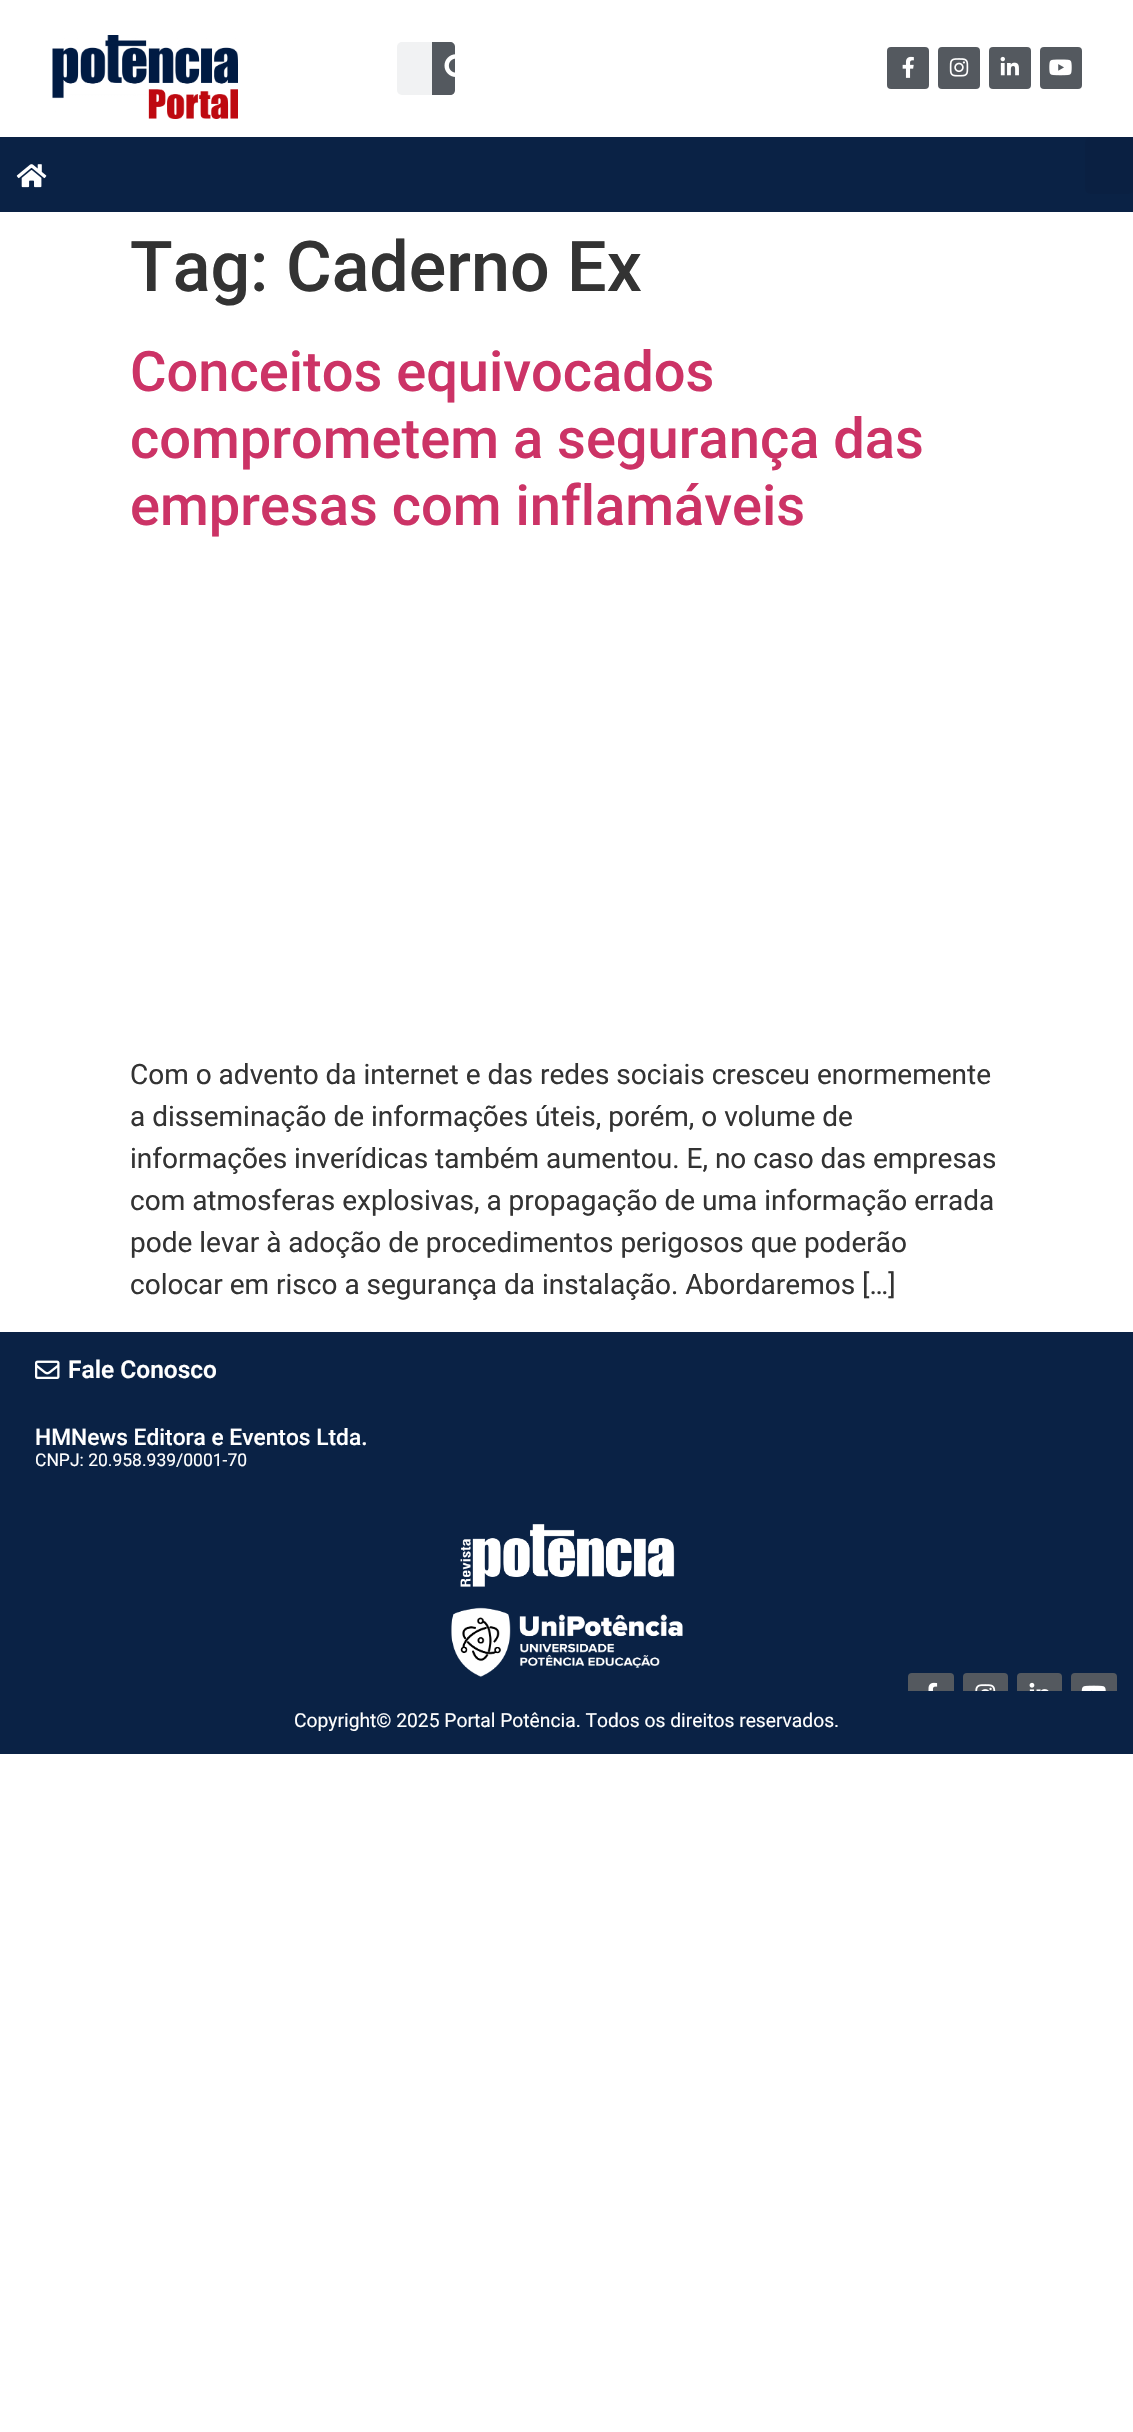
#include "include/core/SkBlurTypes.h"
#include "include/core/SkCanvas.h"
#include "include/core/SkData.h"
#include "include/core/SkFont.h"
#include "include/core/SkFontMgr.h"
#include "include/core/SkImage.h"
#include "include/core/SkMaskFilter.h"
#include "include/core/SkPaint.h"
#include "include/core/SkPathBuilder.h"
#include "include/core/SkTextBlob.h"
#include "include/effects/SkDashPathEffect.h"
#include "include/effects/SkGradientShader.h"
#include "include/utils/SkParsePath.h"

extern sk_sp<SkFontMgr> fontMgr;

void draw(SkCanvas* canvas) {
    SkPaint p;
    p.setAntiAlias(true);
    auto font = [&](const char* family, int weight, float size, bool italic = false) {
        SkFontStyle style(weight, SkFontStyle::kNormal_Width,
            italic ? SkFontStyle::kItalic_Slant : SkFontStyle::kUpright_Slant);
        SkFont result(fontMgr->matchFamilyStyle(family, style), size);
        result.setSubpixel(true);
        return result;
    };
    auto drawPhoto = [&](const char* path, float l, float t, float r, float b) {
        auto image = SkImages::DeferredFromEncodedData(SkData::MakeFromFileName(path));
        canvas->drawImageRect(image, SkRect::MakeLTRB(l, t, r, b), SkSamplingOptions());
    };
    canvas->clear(0xFFFFFFFF);
    drawPhoto("media/1.png", 52, 35, 238, 119);
    p.setColor(0xFFF1F2F3);
    canvas->drawRoundRect(SkRect::MakeLTRB(397, 42, 455, 95), 5, 5, p);
    p.setColor(0xFF54595F);
    canvas->drawPath(SkPathBuilder().moveTo(432, 42).lineTo(450, 42).cubicTo(453, 42, 455, 44, 455, 47).lineTo(455, 90).cubicTo(455, 93, 453, 95, 450, 95).lineTo(432, 95).close().detach(), p);
    drawPhoto("media/2.png", 444, 54, 455, 77);
    canvas->drawRoundRect(SkRect::MakeLTRB(887, 47, 929, 89), 4, 4, p);
    drawPhoto("media/3.png", 902, 56, 914, 78);
    canvas->drawRoundRect(SkRect::MakeLTRB(938, 47, 980, 89), 4, 4, p);
    drawPhoto("media/4.png", 949, 58, 969, 77);
    canvas->drawRoundRect(SkRect::MakeLTRB(989, 47, 1031, 89), 4, 4, p);
    drawPhoto("media/5.png", 1000, 56, 1019, 76);
    canvas->drawRoundRect(SkRect::MakeLTRB(1040, 47, 1082, 89), 4, 4, p);
    drawPhoto("media/6.png", 1049, 59, 1072, 76);
    p.setColor(0xFF0A2245);
    canvas->drawRect(SkRect::MakeLTRB(0, 137, 1133, 212), p);
    drawPhoto("media/7.png", 16, 164, 47, 188);
    p.setColor(0xFF0A2042);
    canvas->drawRoundRect(SkRect::MakeLTRB(1085, 137, 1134, 194), 5, 5, p);
    auto font1 = font("Roboto", 500, 70);
    p.setColor(0xFF333333);
    canvas->drawString("Tag: Caderno Ex", 130, 291, font1, p);
    auto font2 = font("Roboto", 500, 56);
    p.setColor(0xFFCC3366);
    {
        const struct { const char* s; float x, y; } items[] = {
            {"Conceitos equivocados", 130, 391},
            {"comprometem a segurança das", 130, 458},
            {"empresas com inflamáveis", 130, 525},
        };
        for (auto [s, x, y] : items) {
            canvas->drawString(s, x, y, font2, p);
        }
    }
    auto font3 = font("Roboto", 400, 28);
    p.setColor(0xFF333333);
    {
        const struct { const char* s; float x, y; } items[] = {
            {"Com o advento da internet e das redes sociais cresceu enormemente", 130, 1084},
            {"a disseminação de informações úteis, porém, o volume de", 130, 1126},
            {"informações inverídicas também aumentou. E, no caso das empresas", 130, 1168},
            {"com atmosferas explosivas, a propagação de uma informação errada", 130, 1210},
            {"pode levar à adoção de procedimentos perigosos que poderão", 130, 1252},
            {"colocar em risco a segurança da instalação. Abordaremos […]", 130, 1294},
        };
        for (auto [s, x, y] : items) {
            canvas->drawString(s, x, y, font3, p);
        }
    }
    p.setColor(0xFF0A2245);
    canvas->drawRect(SkRect::MakeLTRB(0, 1332, 1133, 1691), p);
    drawPhoto("media/8.png", 35, 1360, 60, 1379);
    auto font4 = font("Roboto", 600, 24.5f);
    p.setColor(0xFFFFFFFF);
    canvas->drawString("Fale Conosco", 68, 1378, font4, p);
    auto font5 = font("Roboto", 500, 22.75f);
    canvas->drawString("HMNews Editora e Eventos Ltda.", 35, 1445, font5, p);
    auto font6 = font("Roboto", 400, 17.5f);
    canvas->drawString("CNPJ: 20.958.939/0001-70", 35, 1466, font6, p);
    drawPhoto("media/9.png", 460, 1524, 675, 1587);
    drawPhoto("media/10.png", 451, 1607, 683, 1677);
    p.setColor(0xFF54595F);
    canvas->drawRoundRect(SkRect::MakeLTRB(908, 1673, 954, 1719), 4, 4, p);
    drawPhoto("media/11.png", 928, 1682, 938, 1691);
    canvas->drawRoundRect(SkRect::MakeLTRB(963, 1673, 1008, 1719), 4, 4, p);
    drawPhoto("media/12.png", 975, 1684, 996, 1691);
    canvas->drawRoundRect(SkRect::MakeLTRB(1017, 1673, 1062, 1719), 4, 4, p);
    drawPhoto("media/13.png", 1029, 1682, 1049, 1691);
    canvas->drawRoundRect(SkRect::MakeLTRB(1071, 1673, 1117, 1719), 4, 4, p);
    drawPhoto("media/14.png", 1081, 1685, 1106, 1691);
    p.setColor(0xFF0A2245);
    canvas->drawRect(SkRect::MakeLTRB(0, 1691, 1133, 1754), p);
    auto font7 = font("Roboto", 400, 19.25f);
    p.setColor(0xFFFFFFFF);
    canvas->drawString("Copyright© 2025 Portal Potência. Todos os direitos reservados.", 294, 1727, font7, p);
}
